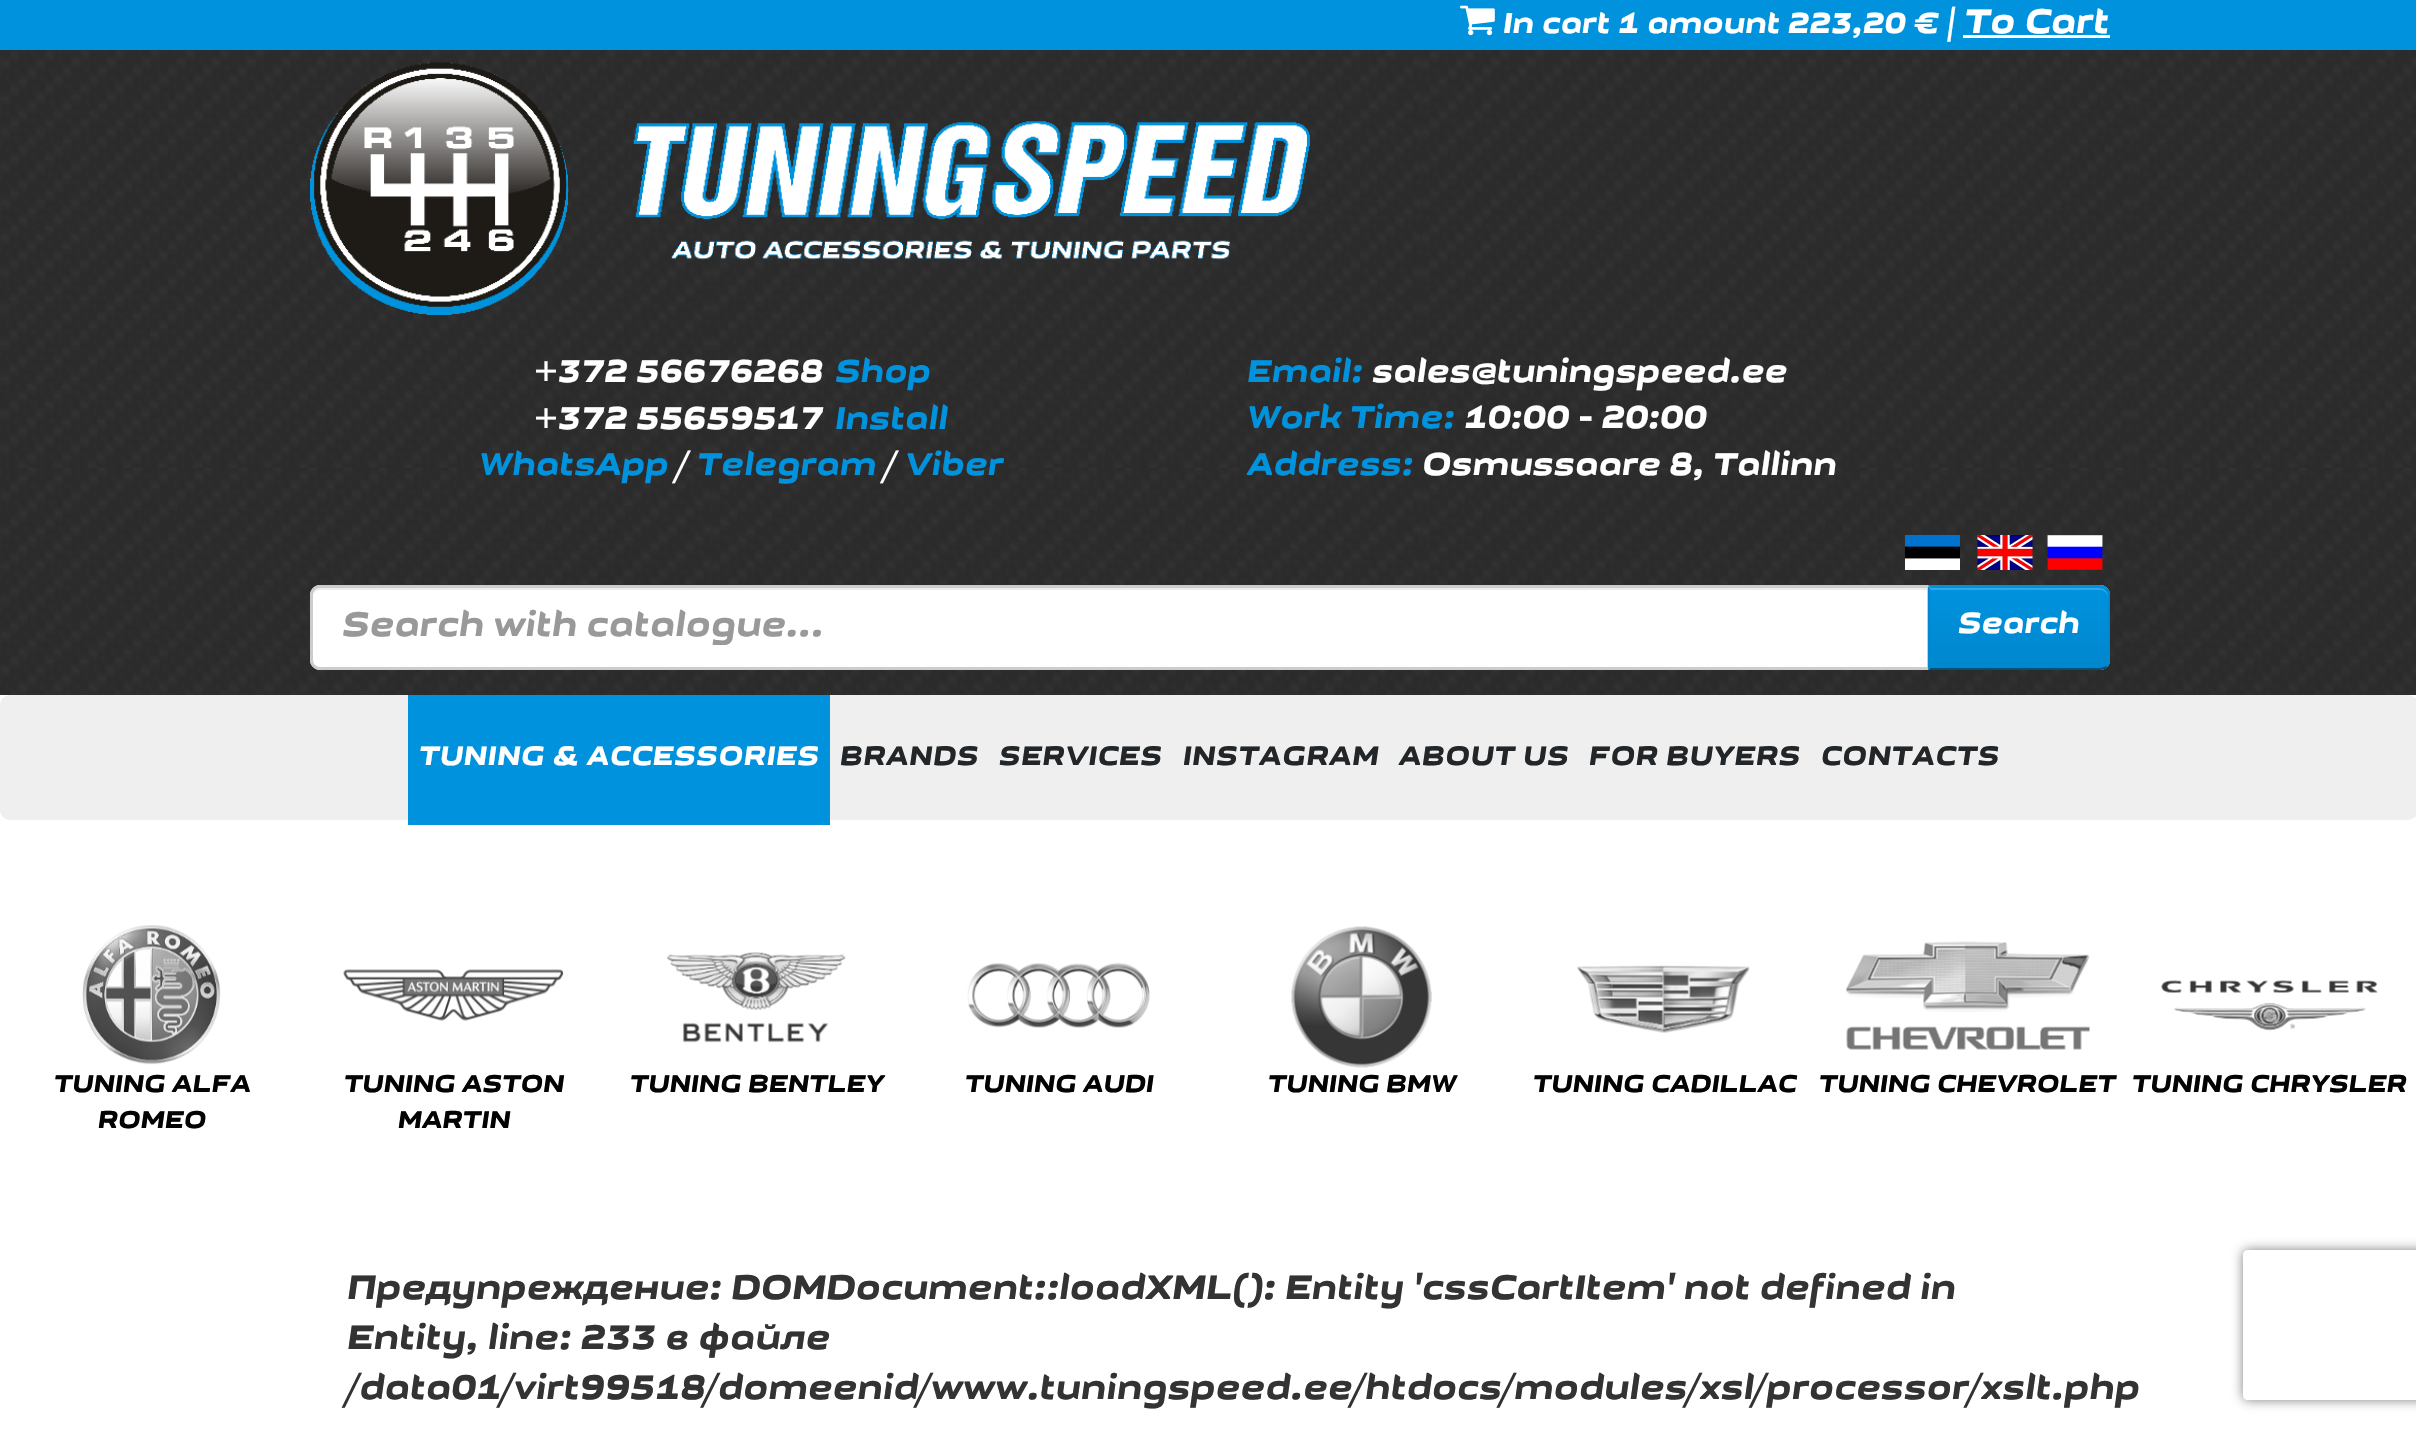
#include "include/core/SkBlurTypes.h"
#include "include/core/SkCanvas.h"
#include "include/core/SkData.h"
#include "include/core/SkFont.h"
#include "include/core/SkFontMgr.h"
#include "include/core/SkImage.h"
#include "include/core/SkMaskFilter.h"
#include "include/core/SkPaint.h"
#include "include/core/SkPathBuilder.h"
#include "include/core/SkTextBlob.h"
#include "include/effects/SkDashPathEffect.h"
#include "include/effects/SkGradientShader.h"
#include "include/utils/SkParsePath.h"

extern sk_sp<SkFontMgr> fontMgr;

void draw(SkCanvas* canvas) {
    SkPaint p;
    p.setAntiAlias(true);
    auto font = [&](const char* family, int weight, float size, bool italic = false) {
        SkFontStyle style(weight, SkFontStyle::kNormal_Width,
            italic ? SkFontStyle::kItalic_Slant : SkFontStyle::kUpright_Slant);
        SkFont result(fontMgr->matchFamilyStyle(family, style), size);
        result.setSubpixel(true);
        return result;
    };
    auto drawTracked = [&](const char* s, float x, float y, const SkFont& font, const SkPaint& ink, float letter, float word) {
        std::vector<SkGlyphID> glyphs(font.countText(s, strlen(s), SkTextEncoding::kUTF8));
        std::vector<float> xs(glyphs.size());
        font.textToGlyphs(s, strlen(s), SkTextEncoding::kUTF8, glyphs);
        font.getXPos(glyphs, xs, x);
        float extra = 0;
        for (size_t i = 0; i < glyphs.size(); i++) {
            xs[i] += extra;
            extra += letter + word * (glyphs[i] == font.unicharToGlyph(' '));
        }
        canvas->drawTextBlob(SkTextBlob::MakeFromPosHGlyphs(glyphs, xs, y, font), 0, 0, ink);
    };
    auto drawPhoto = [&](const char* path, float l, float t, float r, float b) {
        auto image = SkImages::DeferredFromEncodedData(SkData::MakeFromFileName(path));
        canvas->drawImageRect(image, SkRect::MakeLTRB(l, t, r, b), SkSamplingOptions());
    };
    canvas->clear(0xFFFFFFFF);
    p.setColor(0xFF0092DD);
    canvas->drawRect(SkRect::MakeLTRB(0, 0, 2416, 50), p);
    drawPhoto("media/1.png", 1460, 5, 1495, 36);
    auto font1 = font("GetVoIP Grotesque", 700, 29.75f, true);
    p.setColor(0xFFFFFFFF);
    canvas->drawString("In cart 1 amount 223,20 €", 1502, 33, font1, p);
    auto font2 = font("GetVoIP Grotesque", 700, 35, true);
    canvas->drawString("| To Cart", 1946, 33, font2, p);
    canvas->drawRect(SkRect::MakeLTRB(1963, 35, 2110, 38), p);
    drawPhoto("media/2.png", 0, 50, 2416, 695);
    drawPhoto("media/3.png", 310, 62, 1310, 315);
    auto font3 = font("GetVoIP Grotesque", 700, 32.5f, true);
    canvas->drawString("+372 56676268", 533, 382, font3, p);
    p.setColor(0xFF0092DD);
    canvas->drawString("Shop", 834, 382, font3, p);
    p.setColor(0xFFFFFFFF);
    canvas->drawString("+372 55659517", 533, 429, font3, p);
    p.setColor(0xFF0092DD);
    canvas->drawString("Install", 834, 429, font3, p);
    canvas->drawString("WhatsApp", 478, 475, font3, p);
    p.setColor(0xFFFFFFFF);
    canvas->drawString("/", 676, 475, font3, p);
    p.setColor(0xFF0092DD);
    canvas->drawString("Telegram", 696, 475, font3, p);
    p.setColor(0xFFFFFFFF);
    canvas->drawString("/", 884, 475, font3, p);
    p.setColor(0xFF0092DD);
    canvas->drawString("Viber", 904, 475, font3, p);
    canvas->drawString("Email:", 1246, 382, font3, p);
    p.setColor(0xFFFFFFFF);
    canvas->drawString("sales@tuningspeed.ee", 1371, 382, font3, p);
    p.setColor(0xFF0092DD);
    canvas->drawString("Work Time:", 1246, 428, font3, p);
    p.setColor(0xFFFFFFFF);
    canvas->drawString("10:00 - 20:00", 1463, 428, font3, p);
    p.setColor(0xFF0092DD);
    canvas->drawString("Address:", 1246, 475, font3, p);
    p.setColor(0xFFFFFFFF);
    canvas->drawString("Osmussaare 8, Tallinn", 1421, 475, font3, p);
    drawPhoto("media/4.png", 1905, 535, 1960, 570);
    drawPhoto("media/5.png", 1977, 535, 2033, 570);
    drawPhoto("media/6.png", 2047, 535, 2103, 570);
    canvas->drawPath(SkPathBuilder().moveTo(320, 585).lineTo(1930, 585).lineTo(1930, 670).lineTo(320, 670).cubicTo(314.5f, 670, 310, 665.5f, 310, 660).lineTo(310, 595).cubicTo(310, 589.5f, 314.5f, 585, 320, 585).close().detach(), p);
    p.setColor(0xFFECECEC);
    canvas->drawPath(SkPathBuilder().moveTo(320, 590).lineTo(1928, 590).lineTo(1928, 588).lineTo(321, 588).cubicTo(318, 588, 315, 590, 313, 593).cubicTo(315, 591, 318, 590, 320, 590).close().detach(), p);
    p.setStyle(SkPaint::kStroke_Style);
    p.setStrokeWidth(3);
    p.setColor(0xFFCCCCCC);
    canvas->drawPath(SkPathBuilder().moveTo(320, 586.5f).lineTo(1928.5f, 586.5f).lineTo(1928.5f, 668.5f).lineTo(320, 668.5f).cubicTo(315.5f, 668.5f, 311.5f, 664.5f, 311.5f, 660).lineTo(311.5f, 595).cubicTo(311.5f, 590.5f, 315.5f, 586.5f, 320, 586.5f).close().detach(), p);
    canvas->save();
    canvas->clipRect(SkRect::MakeLTRB(343, 608, 1898, 645));
    p.setStyle(SkPaint::kFill_Style);
    p.setColor(0xFF999999);
    canvas->drawString("Search with catalogue...", 341, 636, font2, p);
    canvas->restore();
    p.setColor(0xFFEFEFEF);
    canvas->drawPath(SkPathBuilder().moveTo(1928, 585).lineTo(2100, 585).cubicTo(2105.5f, 585, 2110, 589.5f, 2110, 595).lineTo(2110, 660).cubicTo(2110, 665.5f, 2105.5f, 670, 2100, 670).lineTo(1928, 670).close().detach(), p);
    canvas->save();
    canvas->clipPath(SkPathBuilder().moveTo(1928, 585).lineTo(2100, 585).cubicTo(2105.5f, 585, 2110, 589.5f, 2110, 595).lineTo(2110, 660).cubicTo(2110, 665.5f, 2105.5f, 670, 2100, 670).lineTo(1928, 670).close().detach(), true);
    {
        const SkColor colors[] = {0xFF0092DE, 0xFF0087CE};
        const float stops[] = {0, 1};
        const SkPoint ends[] = {{2019, 588}, {2019, 668}};
        p.setShader(SkGradientShader::MakeLinear(ends, colors, stops, 2, SkTileMode::kClamp));
        p.setAlpha(255);
    }
    canvas->drawRect(SkRect::MakeLTRB(1930, 588, 2110, 668), p);
    canvas->restore();
    p.setShader(nullptr);
    p.setColor(0xFF33A8E5);
    canvas->drawPath(SkPathBuilder().moveTo(1930, 590).lineTo(2100, 590).cubicTo(2104, 590, 2108, 593, 2108, 598).lineTo(2108, 596).cubicTo(2108, 592, 2104, 588, 2100, 588).lineTo(1930, 588).close().detach(), p);
    p.setColor(0xFF0092DE);
    canvas->drawPath(SkPathBuilder().moveTo(1928, 585).lineTo(1930, 588).lineTo(2100, 588).cubicTo(2102, 588, 2104, 589, 2105, 590).lineTo(2107, 588).cubicTo(2106, 586, 2103, 585, 2100, 585).close().detach(), p);
    p.setColor(0xFF0087CE);
    canvas->drawPath(SkPathBuilder().moveTo(2110, 660).lineTo(2110, 595).cubicTo(2110, 592, 2109, 590, 2107, 588).lineTo(2105, 590).cubicTo(2107, 591, 2108, 593, 2108, 595).lineTo(2108, 660).cubicTo(2108, 662, 2107, 664, 2106, 666).lineTo(2107, 667).cubicTo(2109, 666, 2110, 663, 2110, 660).close().detach(), p);
    p.setColor(0xFF00517B);
    canvas->drawPath(SkPathBuilder().moveTo(1928, 670).lineTo(2100, 670).cubicTo(2103, 670, 2106, 669, 2107, 667).lineTo(2106, 666).cubicTo(2104, 667, 2102, 668, 2100, 668).lineTo(1930, 668).close().detach(), p);
    p.setColor(0xFF0087CE);
    canvas->drawPath(SkPathBuilder().moveTo(1930, 588).lineTo(1928, 586).lineTo(1928, 670).lineTo(1930, 668).close().detach(), p);
    auto font4 = font("GetVoIP Grotesque", 700, 30, true);
    p.setColor(0xFFFFFFFF);
    canvas->drawString("Search", 1957, 633, font4, p);
    p.setColor(0xFFEFEFEF);
    canvas->drawRoundRect(SkRect::MakeLTRB(0, 695, 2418, 820), 10, 10, p);
    p.setColor(0xFF0092DD);
    canvas->drawRect(SkRect::MakeLTRB(408, 695, 830, 825), p);
    auto font5 = font("GetVoIP Grotesque", 700, 27.5f, true);
    p.setColor(0xFFFFFFFF);
    drawTracked("TUNING & ACCESSORIES", 418, 765, font5, p, 0.55f, 0);
    p.setColor(0xFF232628);
    {
        const struct { const char* s; float x, y; } items[] = {
            {"BRANDS", 839, 765},
            {"SERVICES", 998, 765},
            {"INSTAGRAM", 1182, 765},
            {"ABOUT US", 1398, 765},
            {"FOR BUYERS", 1588, 765},
            {"CONTACTS", 1820, 765},
        };
        for (auto [s, x, y] : items) {
            drawTracked(s, x, y, font5, p, 0.55f, 0);
        }
    }
    drawPhoto("media/7.png", 82, 925, 221, 1065);
    auto font6 = font("GetVoIP Grotesque", 700, 25, true);
    p.setColor(0xFF030303);
    canvas->drawString("TUNING ALFA", 53, 1092, font6, p);
    canvas->drawString("ROMEO", 97, 1128, font6, p);
    drawPhoto("media/8.png", 343, 969, 564, 1021);
    canvas->drawString("TUNING ASTON", 343, 1092, font6, p);
    canvas->drawString("MARTIN", 397, 1128, font6, p);
    drawPhoto("media/9.png", 667, 952, 846, 1043);
    canvas->drawString("TUNING BENTLEY", 629, 1092, font6, p);
    drawPhoto("media/10.png", 967, 962, 1150, 1028);
    canvas->drawString("TUNING AUDI", 964, 1092, font6, p);
    drawPhoto("media/11.png", 1291, 926, 1432, 1068);
    canvas->drawString("TUNING BMW", 1267, 1092, font6, p);
    drawPhoto("media/12.png", 1577, 965, 1750, 1033);
    canvas->drawString("TUNING CADILLAC", 1532, 1092, font6, p);
    drawPhoto("media/13.png", 1846, 941, 2090, 1050);
    canvas->drawString("TUNING CHEVROLET", 1818, 1092, font6, p);
    drawPhoto("media/14.png", 2161, 980, 2378, 1031);
    canvas->drawString("TUNING CHRYSLER", 2131, 1092, font6, p);
    p.setColor(0xFF333333);
    {
        const struct { const char* s; float x, y; } items[] = {
            {"Предупреждение: DOMDocument::loadXML(): Entity 'cssCartItem' not defined in", 346, 1299},
            {"Entity, line: 233 в файле", 346, 1349},
            {"/data01/virt99518/domeenid/www.tuningspeed.ee/htdocs/modules/xsl/processor/xslt.php", 346, 1399},
        };
        for (auto [s, x, y] : items) {
            canvas->drawString(s, x, y, font2, p);
        }
    }
    canvas->save();
    canvas->clipPath(SkPathBuilder(SkPathFillType::kEvenOdd).moveTo(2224, 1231).lineTo(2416, 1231).lineTo(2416, 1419).lineTo(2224, 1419).close().moveTo(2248, 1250).lineTo(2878, 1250).cubicTo(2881, 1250, 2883, 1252, 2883, 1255).lineTo(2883, 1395).cubicTo(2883, 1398, 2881, 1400, 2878, 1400).lineTo(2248, 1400).cubicTo(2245, 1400, 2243, 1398, 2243, 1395).lineTo(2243, 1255).cubicTo(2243, 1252, 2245, 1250, 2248, 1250).close().detach(), true);
    p.setColor(0xFF808080);
    p.setMaskFilter(SkMaskFilter::MakeBlur(kNormal_SkBlurStyle, 6));
    canvas->drawRoundRect(SkRect::MakeLTRB(2243, 1250, 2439, 1400), 5, 5, p);
    p.setMaskFilter(nullptr);
    canvas->restore();
}
